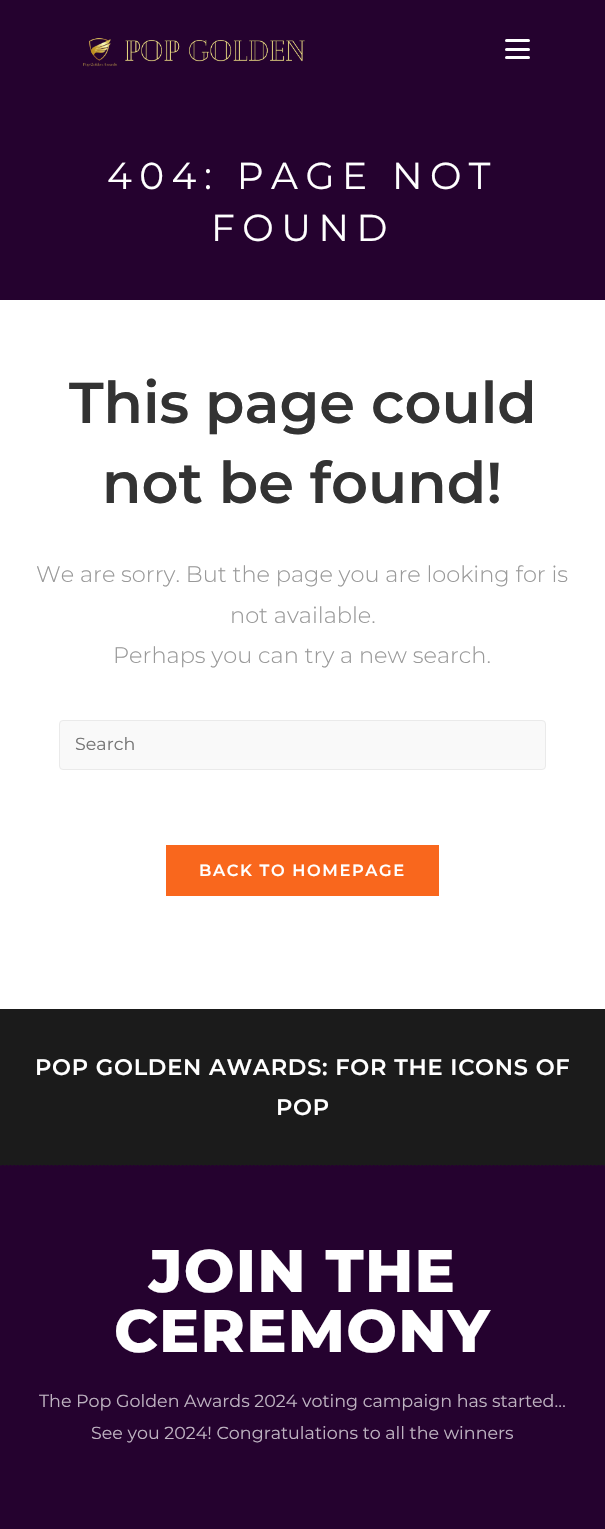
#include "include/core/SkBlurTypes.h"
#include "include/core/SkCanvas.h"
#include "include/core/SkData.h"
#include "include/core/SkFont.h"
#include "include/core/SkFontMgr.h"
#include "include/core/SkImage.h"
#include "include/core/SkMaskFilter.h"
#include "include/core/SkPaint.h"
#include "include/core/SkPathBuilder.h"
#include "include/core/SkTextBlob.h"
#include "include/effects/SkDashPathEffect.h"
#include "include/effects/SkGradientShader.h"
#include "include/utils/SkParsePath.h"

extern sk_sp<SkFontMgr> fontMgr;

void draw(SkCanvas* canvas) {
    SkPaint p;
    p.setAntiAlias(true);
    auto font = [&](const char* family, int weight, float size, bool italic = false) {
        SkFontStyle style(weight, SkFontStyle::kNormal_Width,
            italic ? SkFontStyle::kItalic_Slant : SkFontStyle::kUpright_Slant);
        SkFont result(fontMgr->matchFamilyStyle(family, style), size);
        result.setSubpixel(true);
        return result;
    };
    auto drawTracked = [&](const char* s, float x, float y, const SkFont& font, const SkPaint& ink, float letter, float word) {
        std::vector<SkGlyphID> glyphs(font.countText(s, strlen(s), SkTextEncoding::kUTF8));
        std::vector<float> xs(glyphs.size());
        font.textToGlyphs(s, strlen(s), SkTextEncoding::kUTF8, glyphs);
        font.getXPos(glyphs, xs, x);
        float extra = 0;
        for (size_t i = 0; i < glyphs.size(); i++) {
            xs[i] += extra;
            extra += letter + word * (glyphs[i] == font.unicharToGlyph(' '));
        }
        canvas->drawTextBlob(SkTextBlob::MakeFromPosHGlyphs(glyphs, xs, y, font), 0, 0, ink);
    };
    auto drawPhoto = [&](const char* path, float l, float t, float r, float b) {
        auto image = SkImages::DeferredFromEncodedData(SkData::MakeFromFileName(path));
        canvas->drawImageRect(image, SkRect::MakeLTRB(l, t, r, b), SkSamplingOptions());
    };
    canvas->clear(0xFFFFFFFF);
    p.setColor(0xFF25022F);
    canvas->drawRect(SkRect::MakeLTRB(0, 0, 605, 300), p);
    drawPhoto("media/1.png", 83, 38, 305, 67);
    p.setColor(0xFFFFFFFF);
    canvas->drawRoundRect(SkRect::MakeLTRB(505, 48, 530, 51), 1.5f, 1.5f, p);
    canvas->drawRoundRect(SkRect::MakeLTRB(505, 39, 530, 42), 1.5f, 1.5f, p);
    canvas->drawRoundRect(SkRect::MakeLTRB(505, 56, 530, 59), 1.5f, 1.5f, p);
    auto font1 = font("Montserrat", 400, 37.5f);
    drawTracked("404: PAGE NOT", 107, 189, font1, p, 7.5f, 0);
    drawTracked("FOUND", 211, 241, font1, p, 7.5f, 0);
    auto font2 = font("Montserrat", 600, 57.5f);
    p.setColor(0xFF333333);
    canvas->drawString("This page could", 69, 423, font2, p);
    canvas->drawString("not be found!", 102, 503, font2, p);
    auto font3 = font("Montserrat", 300, 22.5f);
    p.setColor(0xFF999999);
    {
        const struct { const char* s; float x, y; } items[] = {
            {"We are sorry. But the page you are looking for is", 36, 582},
            {"not available.", 230, 623},
            {"Perhaps you can try a new search.", 113, 663},
        };
        for (auto [s, x, y] : items) {
            canvas->drawString(s, x, y, font3, p);
        }
    }
    p.setColor(0xFFF9F9F9);
    canvas->drawRoundRect(SkRect::MakeLTRB(59.5f, 720.5f, 545.5f, 769.5f), 3.5f, 3.5f, p);
    p.setStyle(SkPaint::kStroke_Style);
    p.setStrokeWidth(1);
    p.setColor(0xFFEAEAEA);
    canvas->drawRoundRect(SkRect::MakeLTRB(59.5f, 720.5f, 545.5f, 769.5f), 3.5f, 3.5f, p);
    auto font4 = font("Montserrat", 400, 17.5f);
    p.setStyle(SkPaint::kFill_Style);
    p.setColor(0xFF757575);
    canvas->drawString("Search", 75, 750, font4, p);
    p.setColor(0xFFF9671D);
    canvas->drawRect(SkRect::MakeLTRB(166, 845, 439, 896), p);
    auto font5 = font("Montserrat", 600, 16.25f);
    p.setColor(0xFFFFFFFF);
    drawTracked("BACK TO HOMEPAGE", 199, 876, font5, p, 1.6f, 0);
    p.setColor(0xFF1B1B1B);
    canvas->drawRect(SkRect::MakeLTRB(0, 1009, 605, 1166), p);
    auto font6 = font("Montserrat", 600, 22.5f);
    p.setColor(0xFFFFFFFF);
    drawTracked("POP GOLDEN AWARDS: FOR THE ICONS OF", 35, 1075, font6, p, 0.75f, 0);
    drawTracked("POP", 276, 1115, font6, p, 0.75f, 0);
    p.setColor(0xFF25022F);
    canvas->drawRect(SkRect::MakeLTRB(0, 1166, 605, 1529), p);
    drawPhoto("media/2.png", 0, 1165, 605, 1166);
    auto font7 = font("Montserrat", 800, 60);
    p.setColor(0xFFFFFFFF);
    drawTracked("JOIN THE", 149, 1292, font7, p, 1.25f, 0);
    drawTracked("CEREMONY", 114, 1352, font7, p, 1.25f, 0);
    p.setColor(0xFFBEB3C1);
    canvas->drawString("The Pop Golden Awards 2024 voting campaign has started…", 39, 1407, font4, p);
    canvas->drawString("See you 2024! Congratulations to all the winners", 91, 1439, font4, p);
}
